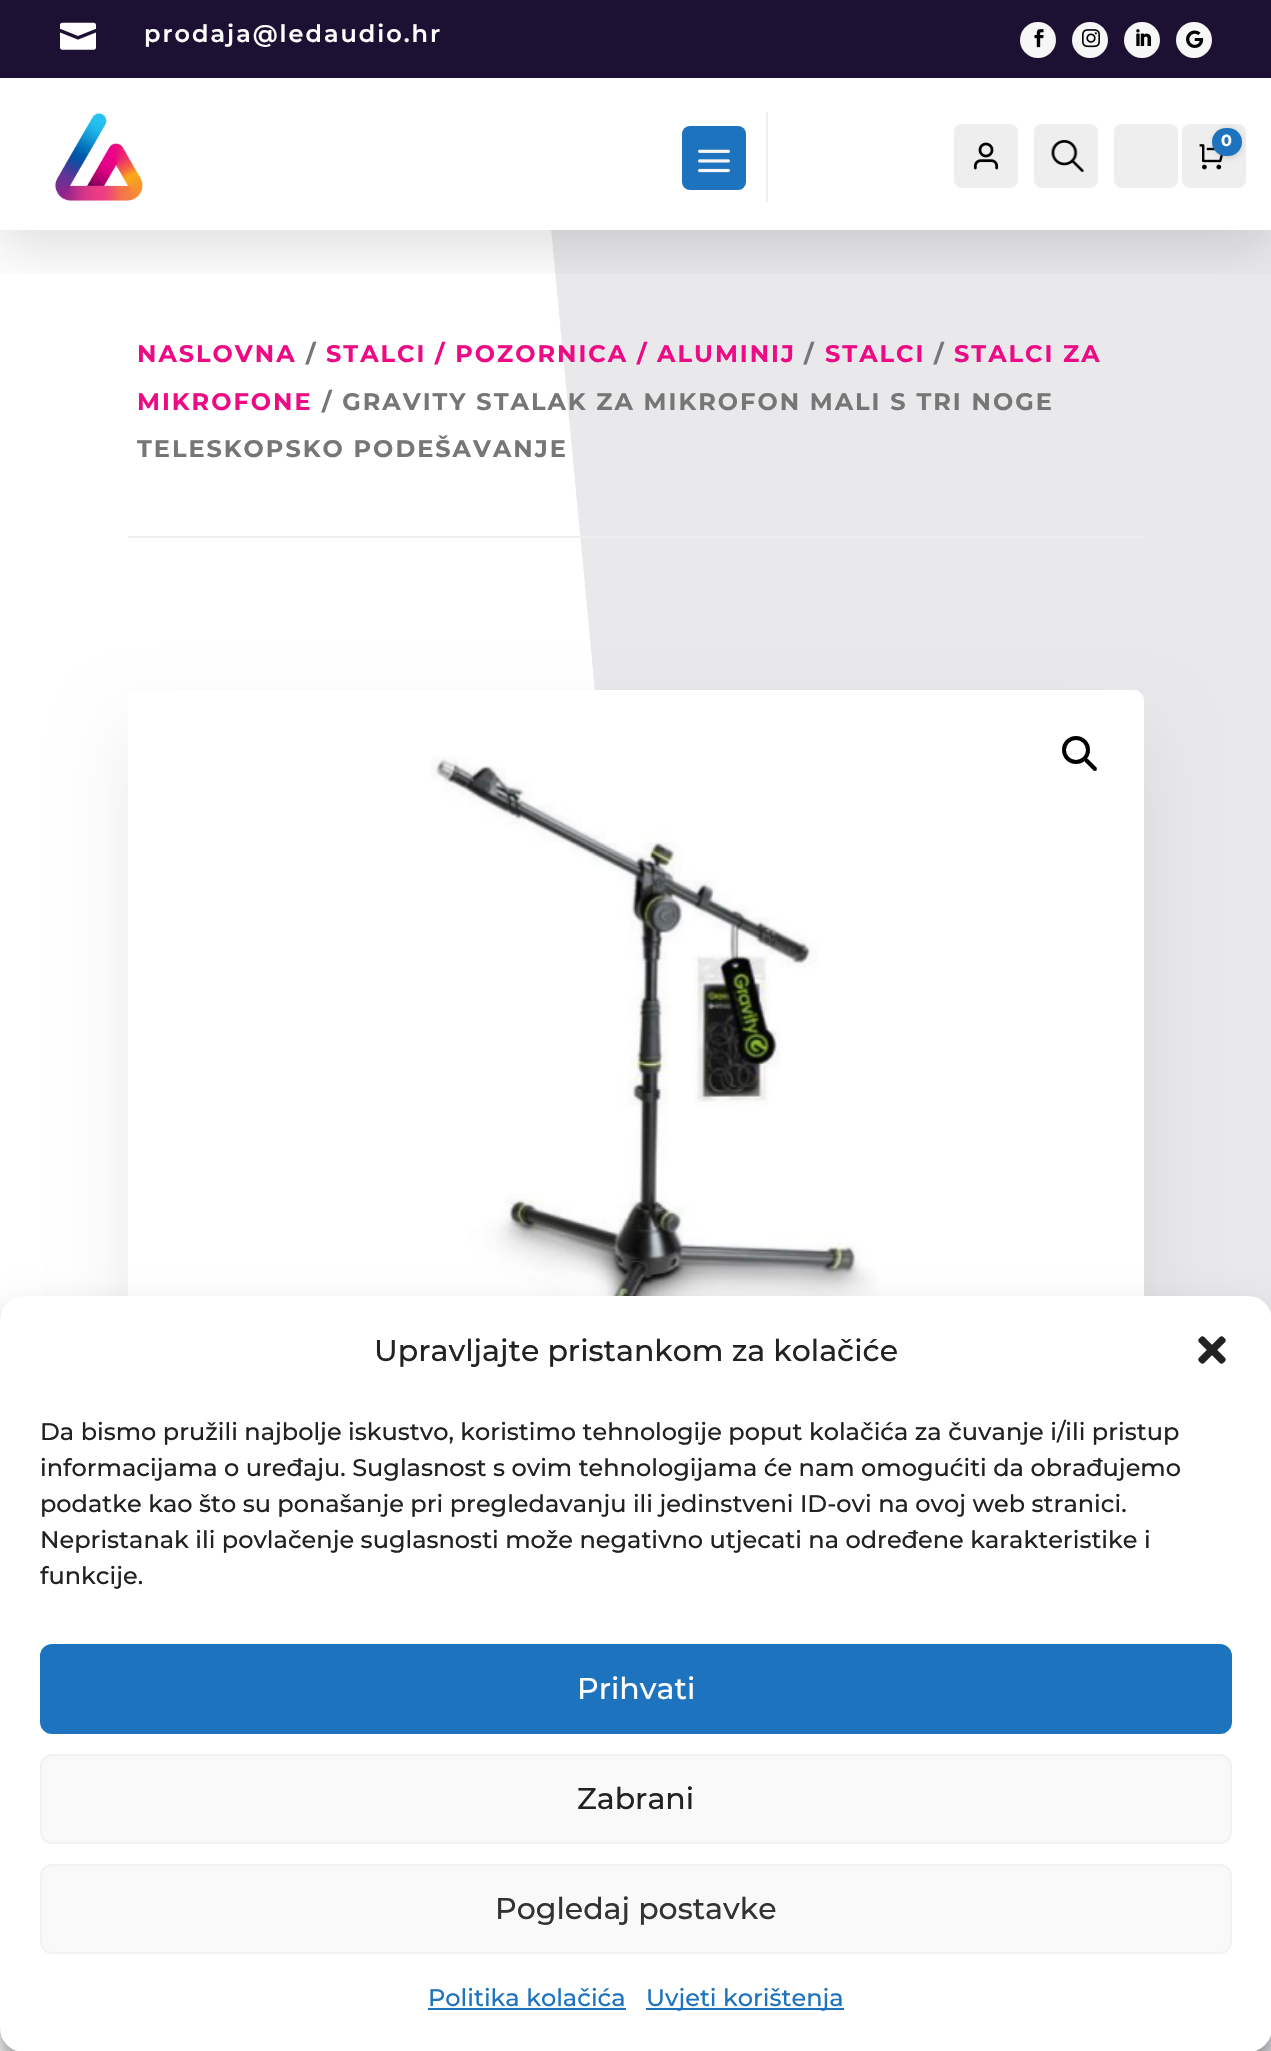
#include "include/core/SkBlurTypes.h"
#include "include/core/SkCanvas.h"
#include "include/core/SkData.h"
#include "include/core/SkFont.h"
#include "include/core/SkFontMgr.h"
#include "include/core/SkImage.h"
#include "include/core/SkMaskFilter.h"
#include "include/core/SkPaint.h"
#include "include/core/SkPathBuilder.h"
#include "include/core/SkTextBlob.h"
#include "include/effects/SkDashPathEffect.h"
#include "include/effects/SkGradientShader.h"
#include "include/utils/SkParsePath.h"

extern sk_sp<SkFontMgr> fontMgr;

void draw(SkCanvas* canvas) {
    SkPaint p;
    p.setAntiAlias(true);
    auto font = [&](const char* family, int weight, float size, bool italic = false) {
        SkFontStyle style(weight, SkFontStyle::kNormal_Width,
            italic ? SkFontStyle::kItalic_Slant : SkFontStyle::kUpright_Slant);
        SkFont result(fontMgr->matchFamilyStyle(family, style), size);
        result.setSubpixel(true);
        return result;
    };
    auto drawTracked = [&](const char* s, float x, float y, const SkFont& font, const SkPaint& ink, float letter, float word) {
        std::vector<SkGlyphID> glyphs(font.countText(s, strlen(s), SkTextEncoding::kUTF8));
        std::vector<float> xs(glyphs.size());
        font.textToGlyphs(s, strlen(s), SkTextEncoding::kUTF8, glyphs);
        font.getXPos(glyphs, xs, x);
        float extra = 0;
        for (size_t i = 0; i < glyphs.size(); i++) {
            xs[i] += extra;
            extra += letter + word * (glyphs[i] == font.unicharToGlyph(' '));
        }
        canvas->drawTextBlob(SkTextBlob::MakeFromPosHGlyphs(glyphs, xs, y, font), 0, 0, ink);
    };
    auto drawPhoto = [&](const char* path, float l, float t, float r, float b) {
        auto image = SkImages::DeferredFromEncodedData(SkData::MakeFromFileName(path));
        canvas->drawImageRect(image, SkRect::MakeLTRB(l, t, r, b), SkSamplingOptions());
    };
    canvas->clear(0xFFFFFFFF);
    canvas->save();
    canvas->clipRect(SkRect::MakeLTRB(0, 230, 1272, 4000));
    p.setColor(0xFFE9E8EB);
    canvas->drawPath(SkPathBuilder().moveTo(944, 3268).lineTo(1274, 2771).lineTo(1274, 228).lineTo(551, 228).lineTo(818, 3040).cubicTo(837, 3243, 893, 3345, 944, 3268).close().detach(), p);
    canvas->restore();
    canvas->save();
    canvas->clipRect(SkRect::MakeLTRB(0, 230, 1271, 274));
    p.setColor(0x1F000000);
    p.setMaskFilter(SkMaskFilter::MakeBlur(kNormal_SkBlurStyle, 25));
    canvas->drawRect(SkRect::MakeLTRB(0, 20, 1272, 250), p);
    p.setMaskFilter(nullptr);
    canvas->restore();
    p.setColor(0xFF1C1033);
    canvas->drawRect(SkRect::MakeLTRB(0, 0, 1271, 78), p);
    drawPhoto("media/1.png", 60, 22, 96, 50);
    auto font1 = font("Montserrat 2", 100, 24);
    p.setColor(0xFFFFFFFF);
    drawTracked("prodaja@ledaudio.hr", 144, 42, font1, p, 2, 0);
    p.setColor(0xFFF7F7F7);
    canvas->drawCircle(1038, 40, 18, p);
    drawPhoto("media/2.png", 1034, 29, 1044, 48);
    canvas->drawCircle(1090, 40, 18, p);
    drawPhoto("media/3.png", 1082, 29, 1100, 48);
    canvas->drawCircle(1142, 40, 18, p);
    drawPhoto("media/4.png", 1136, 29, 1152, 46);
    canvas->drawCircle(1194, 40, 18, p);
    drawPhoto("media/5.png", 1186, 30, 1204, 48);
    p.setColor(0xFFEEEEEE);
    canvas->drawRect(SkRect::MakeLTRB(766, 112, 768, 202), p);
    drawPhoto("media/6.png", 55, 113, 143, 201);
    p.setColor(0xFF1E73BE);
    canvas->drawRoundRect(SkRect::MakeLTRB(682, 126, 746, 190), 8, 8, p);
    drawPhoto("media/7.png", 698, 149, 730, 173);
    p.setColor(0xFFEEEEEE);
    canvas->drawRoundRect(SkRect::MakeLTRB(954, 124, 1018, 188), 8, 8, p);
    drawPhoto("media/8.png", 973, 142, 999, 170);
    canvas->drawRoundRect(SkRect::MakeLTRB(1034, 124, 1098, 188), 8, 8, p);
    drawPhoto("media/9.png", 1051, 140, 1084, 172);
    canvas->drawRoundRect(SkRect::MakeLTRB(1114, 124, 1178, 188), 8, 8, p);
    canvas->drawRoundRect(SkRect::MakeLTRB(1182, 124, 1246, 188), 8, 8, p);
    drawPhoto("media/10.png", 1199, 144, 1223, 170);
    p.setColor(0x26000000);
    p.setMaskFilter(SkMaskFilter::MakeBlur(kNormal_SkBlurStyle, 2.5f));
    canvas->drawRoundRect(SkRect::MakeLTRB(1214, 128, 1242, 158), 14, 14, p);
    p.setMaskFilter(nullptr);
    p.setColor(0xFF1E73BE);
    canvas->drawRoundRect(SkRect::MakeLTRB(1212, 128, 1242, 156), 14, 14, p);
    auto font2 = font("Montserrat", 100, 16);
    p.setColor(0xFFFFFFFF);
    canvas->drawString("0", 1221, 146, font2, p);
    p.setColor(0xFFEEEEEE);
    canvas->drawRect(SkRect::MakeLTRB(128, 536, 1144, 538), p);
    auto font3 = font("Montserrat", 100, 24);
    p.setColor(0xFFEC0A85);
    drawTracked("NASLOVNA", 137, 362, font3, p, 2, 0);
    p.setColor(0xFF767676);
    drawTracked("/", 306, 362, font3, p, 2, 0);
    p.setColor(0xFFEC0A85);
    drawTracked("STALCI / POZORNICA / ALUMINIJ", 326, 362, font3, p, 2, 0);
    p.setColor(0xFF767676);
    drawTracked("/", 804, 362, font3, p, 2, 0);
    p.setColor(0xFFEC0A85);
    drawTracked("STALCI", 825, 362, font3, p, 2, 0);
    p.setColor(0xFF767676);
    drawTracked("/", 934, 362, font3, p, 2, 0);
    p.setColor(0xFFEC0A85);
    drawTracked("STALCI ZA", 954, 362, font3, p, 2, 0);
    drawTracked("MIKROFONE", 137, 410, font3, p, 2, 0);
    p.setColor(0xFF767676);
    drawTracked("/ GRAVITY STALAK ZA MIKROFON MALI S TRI NOGE", 322, 410, font3, p, 2, 0);
    drawTracked("TELESKOPSKO PODEŠAVANJE", 137, 457, font3, p, 2, 0);
    p.setColor(0x14000000);
    p.setMaskFilter(SkMaskFilter::MakeBlur(kNormal_SkBlurStyle, 35));
    canvas->drawRoundRect(SkRect::MakeLTRB(128, 730, 1144, 1514), 10, 10, p);
    p.setMaskFilter(nullptr);
    canvas->save();
    canvas->clipPath(SkPathBuilder().moveTo(138, 690).lineTo(1134, 690).cubicTo(1139.5f, 690, 1144, 694.5f, 1144, 700).lineTo(1144, 1464).cubicTo(1144, 1469.5f, 1139.5f, 1474, 1134, 1474).lineTo(138, 1474).cubicTo(132.5f, 1474, 128, 1469.5f, 128, 1464).lineTo(128, 700).cubicTo(128, 694.5f, 132.5f, 690, 138, 690).close().detach(), true);
    p.setColor(0xFFFFFFFF);
    canvas->drawRoundRect(SkRect::MakeLTRB(128, 690, 1146, 1474), 10, 10, p);
    canvas->restore();
    drawPhoto("media/11.png", 431, 756, 876, 1296);
    p.setStyle(SkPaint::kStroke_Style);
    p.setStrokeWidth(4);
    p.setColor(0xFF000000);
    canvas->drawCircle(1076, 750, 12, p);
    p.setStyle(SkPaint::kFill_Style);
    canvas->drawPath(SkPathBuilder().moveTo(1085, 759).cubicTo(1086, 758.5f, 1087, 758.5f, 1088, 759).lineTo(1096.5f, 767.5f).cubicTo(1097, 768.5f, 1097, 769.5f, 1096.5f, 770.5f).cubicTo(1095.5f, 771, 1094.5f, 771, 1093.5f, 770.5f).lineTo(1085, 762).cubicTo(1084.5f, 761, 1084.5f, 760, 1085, 759).close().detach(), p);
    p.setColor(0x3B000000);
    p.setMaskFilter(SkMaskFilter::MakeBlur(kNormal_SkBlurStyle, 6));
    canvas->drawRoundRect(SkRect::MakeLTRB(0, 1308, 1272, 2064), 24, 24, p);
    p.setMaskFilter(nullptr);
    p.setColor(0x30000000);
    p.setMaskFilter(SkMaskFilter::MakeBlur(kNormal_SkBlurStyle, 20));
    canvas->drawRoundRect(SkRect::MakeLTRB(0, 1316, 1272, 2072), 24, 24, p);
    p.setMaskFilter(nullptr);
    p.setColor(0xFFFFFFFF);
    canvas->drawRoundRect(SkRect::MakeLTRB(0, 1296, 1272, 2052), 24, 24, p);
    auto font4 = font("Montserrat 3", 100, 30);
    p.setColor(0xFF222222);
    canvas->drawString("Upravljajte pristankom za kolačiće", 374, 1361, font4, p);
    drawPhoto("media/12.png", 1198, 1336, 1226, 1364);
    auto font5 = font("Montserrat 3", 100, 24);
    {
        const struct { const char* s; float x, y; } items[] = {
            {"Da bismo pružili najbolje iskustvo, koristimo tehnologije poput kolačića za čuvanje i/ili pristup", 40, 1440},
            {"informacijama o uređaju. Suglasnost s ovim tehnologijama će nam omogućiti da obrađujemo", 40, 1476},
            {"podatke kao što su ponašanje pri pregledavanju ili jedinstveni ID-ovi na ovoj web stranici.", 40, 1512},
            {"Nepristanak ili povlačenje suglasnosti može negativno utjecati na određene karakteristike i", 40, 1548},
            {"funkcije.", 40, 1584},
        };
        for (auto [s, x, y] : items) {
            canvas->drawString(s, x, y, font5, p);
        }
    }
    p.setColor(0xFF1E73BE);
    canvas->drawRoundRect(SkRect::MakeLTRB(41, 1645, 1231, 1733), 11, 11, p);
    p.setStyle(SkPaint::kStroke_Style);
    p.setStrokeWidth(2);
    canvas->drawRoundRect(SkRect::MakeLTRB(41, 1645, 1231, 1733), 11, 11, p);
    p.setStyle(SkPaint::kFill_Style);
    p.setColor(0xFFFFFFFF);
    canvas->drawString("Prihvati", 577, 1699, font4, p);
    p.setColor(0xFFF9F9F9);
    canvas->drawRoundRect(SkRect::MakeLTRB(41, 1755, 1231, 1843), 11, 11, p);
    p.setStyle(SkPaint::kStroke_Style);
    p.setColor(0xFFF2F2F2);
    canvas->drawRoundRect(SkRect::MakeLTRB(41, 1755, 1231, 1843), 11, 11, p);
    p.setStyle(SkPaint::kFill_Style);
    p.setColor(0xFF222222);
    canvas->drawString("Zabrani", 577, 1809, font4, p);
    p.setColor(0xFFF9F9F9);
    canvas->drawRoundRect(SkRect::MakeLTRB(41, 1865, 1231, 1953), 11, 11, p);
    p.setStyle(SkPaint::kStroke_Style);
    p.setColor(0xFFF2F2F2);
    canvas->drawRoundRect(SkRect::MakeLTRB(41, 1865, 1231, 1953), 11, 11, p);
    p.setStyle(SkPaint::kFill_Style);
    p.setColor(0xFF333333);
    canvas->drawString("Pogledaj postavke", 495, 1919, font4, p);
    p.setColor(0xFF1E73BE);
    canvas->drawString("Politika kolačića", 428, 2006, font5, p);
    canvas->drawRect(SkRect::MakeLTRB(428, 2008, 626, 2010), p);
    canvas->drawRect(SkRect::MakeLTRB(646, 2008, 844, 2010), p);
    canvas->drawString("Uvjeti korištenja", 646, 2006, font5, p);
}
